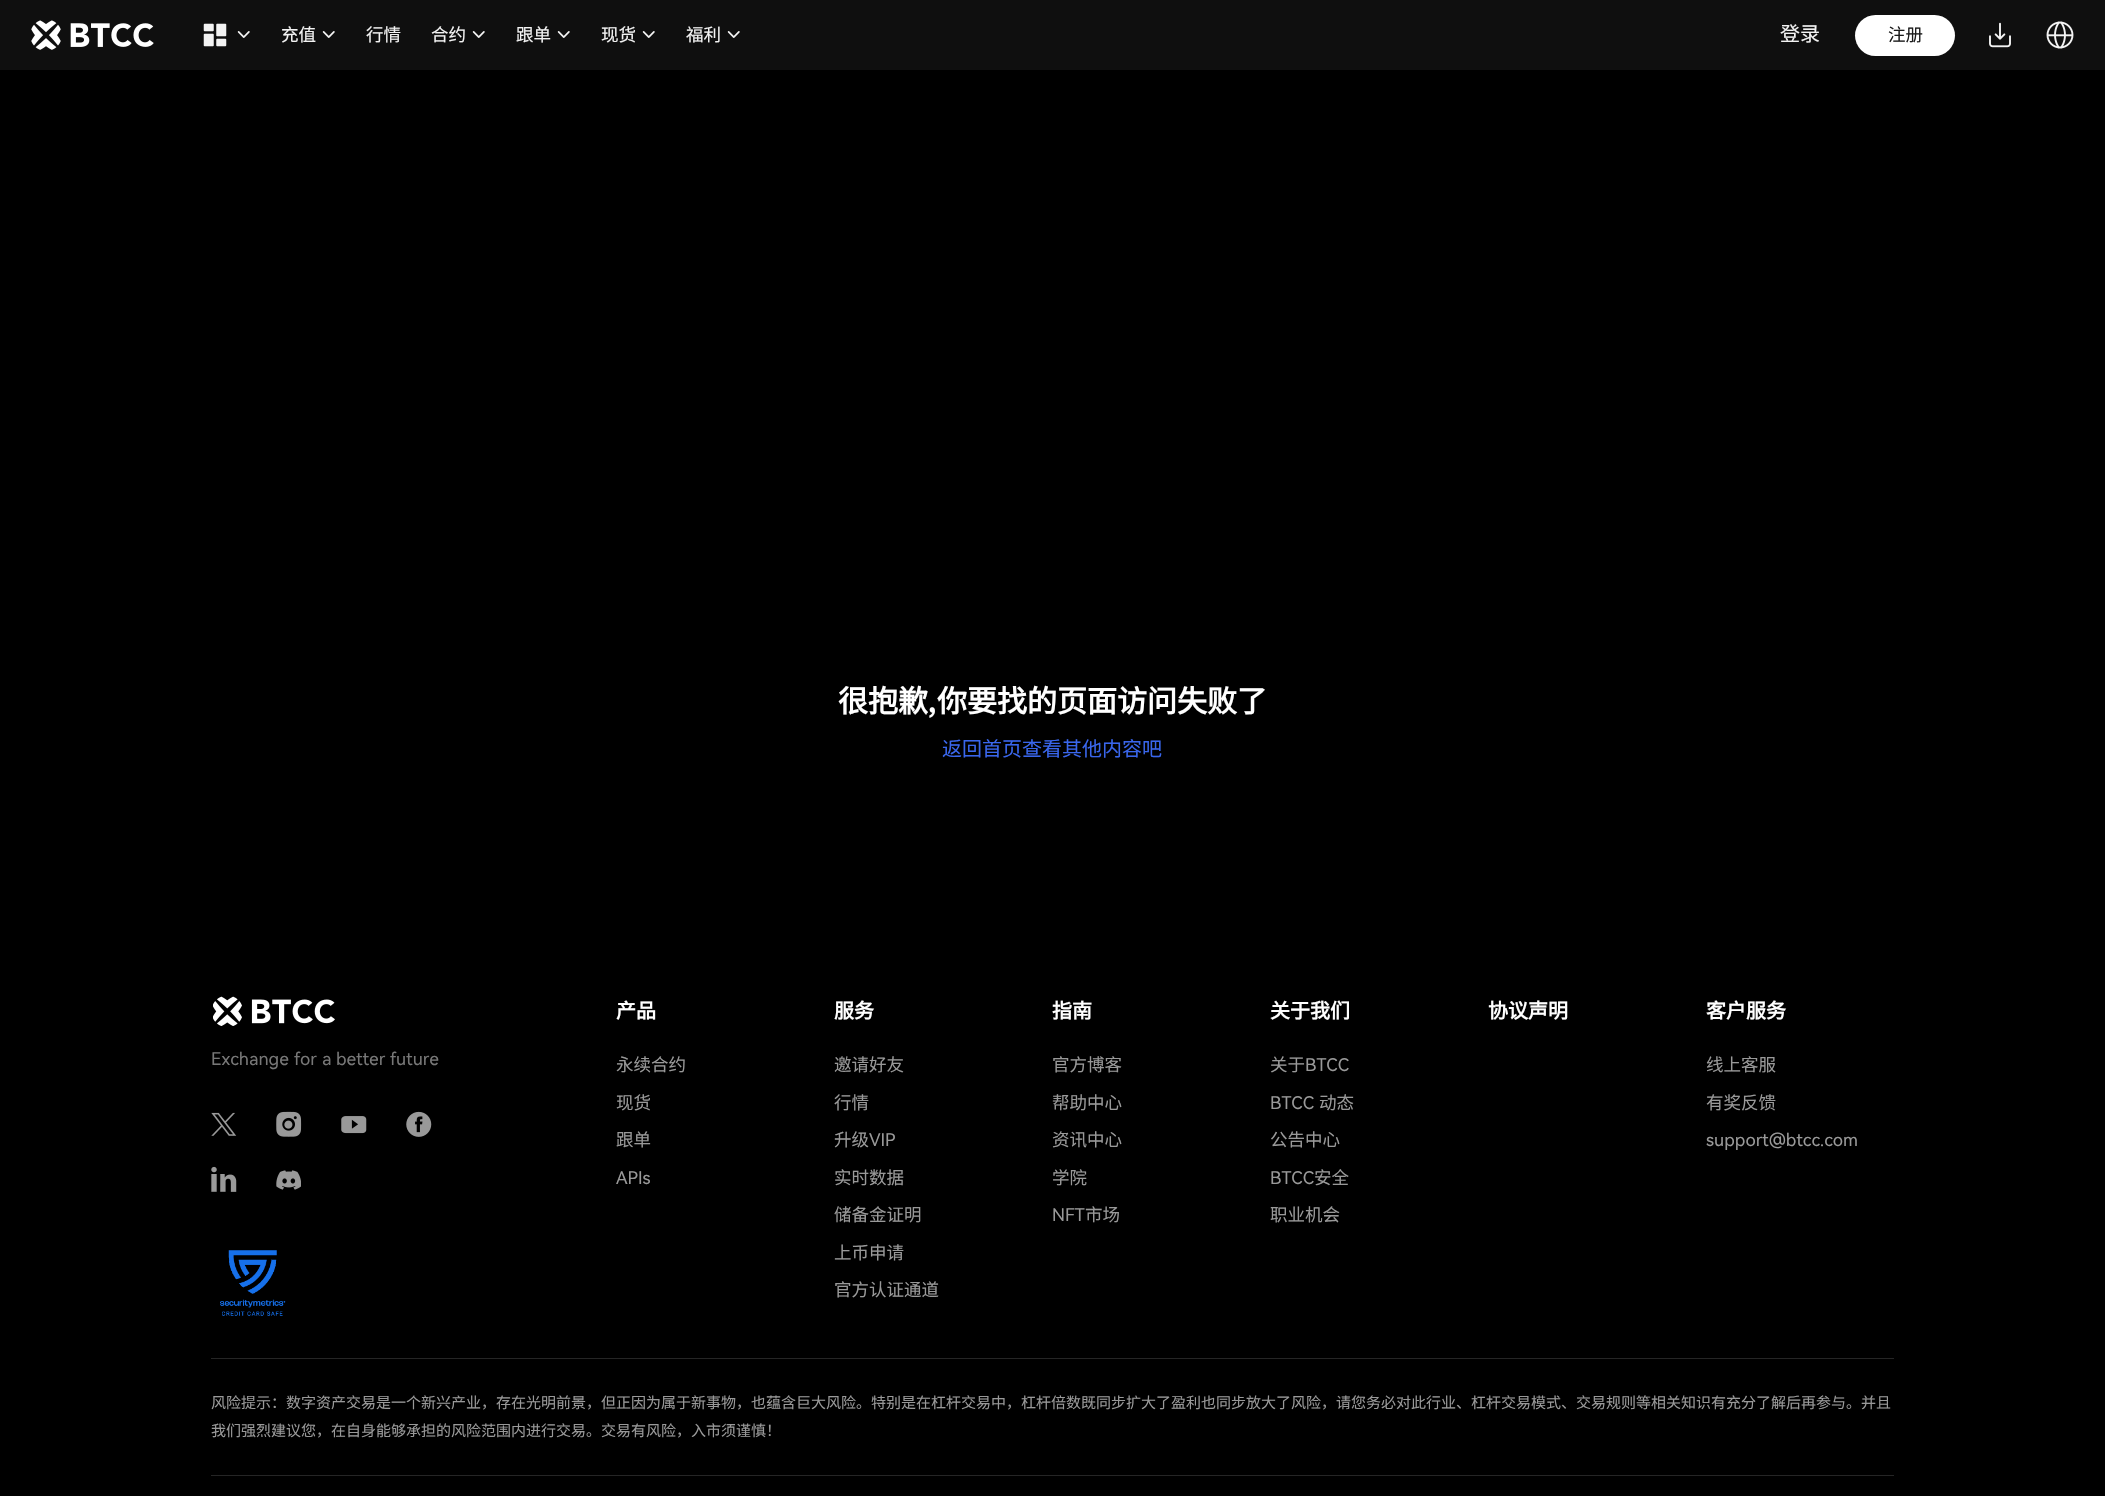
#include "include/core/SkBlurTypes.h"
#include "include/core/SkCanvas.h"
#include "include/core/SkData.h"
#include "include/core/SkFont.h"
#include "include/core/SkFontMgr.h"
#include "include/core/SkImage.h"
#include "include/core/SkMaskFilter.h"
#include "include/core/SkPaint.h"
#include "include/core/SkPathBuilder.h"
#include "include/core/SkTextBlob.h"
#include "include/effects/SkDashPathEffect.h"
#include "include/effects/SkGradientShader.h"
#include "include/utils/SkParsePath.h"

extern sk_sp<SkFontMgr> fontMgr;

void draw(SkCanvas* canvas) {
    SkPaint p;
    p.setAntiAlias(true);
    auto font = [&](const char* family, int weight, float size, bool italic = false) {
        SkFontStyle style(weight, SkFontStyle::kNormal_Width,
            italic ? SkFontStyle::kItalic_Slant : SkFontStyle::kUpright_Slant);
        SkFont result(fontMgr->matchFamilyStyle(family, style), size);
        result.setSubpixel(true);
        return result;
    };
    auto drawPhoto = [&](const char* path, float l, float t, float r, float b) {
        auto image = SkImages::DeferredFromEncodedData(SkData::MakeFromFileName(path));
        canvas->drawImageRect(image, SkRect::MakeLTRB(l, t, r, b), SkSamplingOptions());
    };
    canvas->clear(0xFF000000);
    p.setColor(0xFF0F0F0F);
    canvas->drawRect(SkRect::MakeLTRB(0, 0, 2105, 70), p);
    drawPhoto("media/1.png", 31, 20, 154, 50);
    drawPhoto("media/2.png", 203, 23, 227, 47);
    drawPhoto("media/3.png", 237, 31, 250, 38);
    auto font1 = font("Noto Sans CJK SC", 400, 17.5f);
    p.setColor(0xFFF3F3F3);
    canvas->drawString("充值", 281, 41, font1, p);
    drawPhoto("media/4.png", 322, 31, 335, 38);
    canvas->drawString("行情", 366, 41, font1, p);
    canvas->drawString("合约", 431, 41, font1, p);
    drawPhoto("media/4.png", 472, 31, 485, 38);
    canvas->drawString("跟单", 516, 41, font1, p);
    drawPhoto("media/4.png", 557, 31, 570, 38);
    canvas->drawString("现货", 601, 41, font1, p);
    drawPhoto("media/4.png", 642, 31, 655, 38);
    canvas->drawString("福利", 686, 41, font1, p);
    drawPhoto("media/4.png", 727, 31, 740, 38);
    auto font2 = font("Noto Sans CJK SC", 400, 20);
    canvas->drawString("登录", 1780, 41, font2, p);
    p.setColor(0xFFFFFFFF);
    canvas->drawRoundRect(SkRect::MakeLTRB(1855, 15, 1955, 56), 20.5f, 20.5f, p);
    p.setColor(0xFF1B1B1B);
    canvas->drawString("注册", 1888, 41, font1, p);
    drawPhoto("media/5.png", 1989, 22, 2011, 48);
    drawPhoto("media/6.png", 2046, 21, 2074, 49);
    auto font3 = font("Noto Sans CJK SC", 700, 30);
    p.setColor(0xFFFFFFFF);
    canvas->drawString("很抱歉", 838, 712, font3, p);
    auto font4 = font("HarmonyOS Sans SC", 700, 30);
    canvas->drawString(",", 928, 712, font4, p);
    canvas->drawString("你要找的页面访问失败了", 937, 712, font3, p);
    p.setColor(0xFF3966EC);
    canvas->drawString("返回首页查看其他内容吧", 942, 756, font2, p);
    drawPhoto("media/7.png", 213, 996, 335, 1026);
    auto font5 = font("HarmonyOS Sans SC", 400, 17.5f);
    p.setColor(0xFF777777);
    {
        const struct { const char* s; float x, y; } items[] = {
            {"Exchange", 211, 1065},
            {"for", 294, 1065},
            {"a", 322, 1065},
            {"better", 336, 1065},
            {"future", 390, 1065},
        };
        for (auto [s, x, y] : items) {
            canvas->drawString(s, x, y, font5, p);
        }
    }
    drawPhoto("media/8.png", 211, 1112, 237, 1136);
    drawPhoto("media/9.png", 276, 1111, 302, 1137);
    drawPhoto("media/10.png", 341, 1116, 367, 1134);
    drawPhoto("media/11.png", 406, 1111, 432, 1137);
    drawPhoto("media/12.png", 211, 1166, 237, 1192);
    drawPhoto("media/13.png", 276, 1170, 301, 1190);
    drawPhoto("media/14.png", 220, 1250, 286, 1316);
    auto font6 = font("Noto Sans CJK SC", 700, 20);
    p.setColor(0xFFFFFFFF);
    canvas->drawString("产品", 616, 1018, font6, p);
    p.setColor(0xFF999999);
    {
        const struct { const char* s; float x, y; } items[] = {
            {"永续合约", 616, 1071},
            {"现货", 616, 1109},
            {"跟单", 616, 1146},
        };
        for (auto [s, x, y] : items) {
            canvas->drawString(s, x, y, font1, p);
        }
    }
    canvas->drawString("APIs", 616, 1184, font5, p);
    p.setColor(0xFFFFFFFF);
    canvas->drawString("服务", 834, 1018, font6, p);
    p.setColor(0xFF999999);
    {
        const struct { const char* s; float x, y; } items[] = {
            {"邀请好友", 834, 1071},
            {"行情", 834, 1109},
            {"升级", 834, 1146},
        };
        for (auto [s, x, y] : items) {
            canvas->drawString(s, x, y, font1, p);
        }
    }
    canvas->drawString("VIP", 869, 1146, font5, p);
    {
        const struct { const char* s; float x, y; } items[] = {
            {"实时数据", 834, 1184},
            {"储备金证明", 834, 1221},
            {"上币申请", 834, 1259},
            {"官方认证通道", 834, 1296},
        };
        for (auto [s, x, y] : items) {
            canvas->drawString(s, x, y, font1, p);
        }
    }
    p.setColor(0xFFFFFFFF);
    canvas->drawString("指南", 1052, 1018, font6, p);
    p.setColor(0xFF999999);
    {
        const struct { const char* s; float x, y; } items[] = {
            {"官方博客", 1052, 1071},
            {"帮助中心", 1052, 1109},
            {"资讯中心", 1052, 1146},
            {"学院", 1052, 1184},
        };
        for (auto [s, x, y] : items) {
            canvas->drawString(s, x, y, font1, p);
        }
    }
    canvas->drawString("NFT", 1052, 1221, font5, p);
    canvas->drawString("市场", 1085, 1221, font1, p);
    p.setColor(0xFFFFFFFF);
    canvas->drawString("关于我们", 1270, 1018, font6, p);
    p.setColor(0xFF999999);
    canvas->drawString("关于", 1270, 1071, font1, p);
    canvas->drawString("BTCC", 1305, 1071, font5, p);
    canvas->drawString("BTCC", 1270, 1109, font5, p);
    canvas->drawString("动态", 1319, 1109, font1, p);
    canvas->drawString("公告中心", 1270, 1146, font1, p);
    canvas->drawString("BTCC", 1270, 1184, font5, p);
    canvas->drawString("安全", 1314, 1184, font1, p);
    canvas->drawString("职业机会", 1270, 1221, font1, p);
    p.setColor(0xFFFFFFFF);
    canvas->drawString("协议声明", 1488, 1018, font6, p);
    canvas->drawString("客户服务", 1706, 1018, font6, p);
    p.setColor(0xFF999999);
    canvas->drawString("线上客服", 1706, 1071, font1, p);
    canvas->drawString("有奖反馈", 1706, 1109, font1, p);
    canvas->drawString("support@btcc.com", 1706, 1146, font5, p);
    p.setColor(0xFF252525);
    canvas->drawRect(SkRect::MakeLTRB(211, 1358, 1894, 1359), p);
    canvas->drawRect(SkRect::MakeLTRB(211, 1475, 1894, 1476), p);
    auto font7 = font("Noto Sans CJK SC", 400, 15);
    p.setColor(0xFF999999);
    canvas->drawString("风险提示：数字资产交易是一个新兴产业，存在光明前景，但正因为属于新事物，也蕴含巨大风险。特别是在杠杆交易中，杠杆倍数既同步扩大了盈利也同步放大了风险，请您务必对此行业、杠杆交易模式、交易规则等相关知识有充分了解后再参与。并且", 211, 1408, font7, p);
    canvas->drawString("我们强烈建议您，在自身能够承担的风险范围内进行交易。交易有风险，入市须谨慎！", 211, 1436, font7, p);
}
